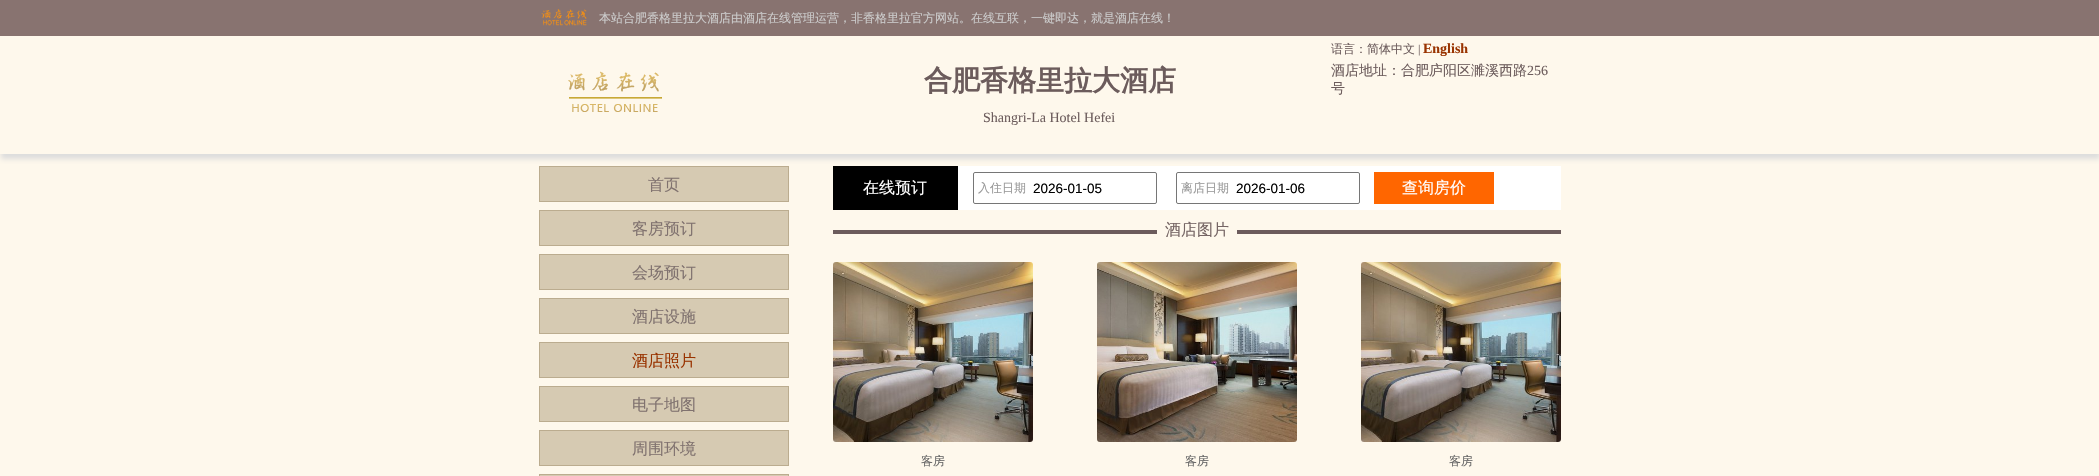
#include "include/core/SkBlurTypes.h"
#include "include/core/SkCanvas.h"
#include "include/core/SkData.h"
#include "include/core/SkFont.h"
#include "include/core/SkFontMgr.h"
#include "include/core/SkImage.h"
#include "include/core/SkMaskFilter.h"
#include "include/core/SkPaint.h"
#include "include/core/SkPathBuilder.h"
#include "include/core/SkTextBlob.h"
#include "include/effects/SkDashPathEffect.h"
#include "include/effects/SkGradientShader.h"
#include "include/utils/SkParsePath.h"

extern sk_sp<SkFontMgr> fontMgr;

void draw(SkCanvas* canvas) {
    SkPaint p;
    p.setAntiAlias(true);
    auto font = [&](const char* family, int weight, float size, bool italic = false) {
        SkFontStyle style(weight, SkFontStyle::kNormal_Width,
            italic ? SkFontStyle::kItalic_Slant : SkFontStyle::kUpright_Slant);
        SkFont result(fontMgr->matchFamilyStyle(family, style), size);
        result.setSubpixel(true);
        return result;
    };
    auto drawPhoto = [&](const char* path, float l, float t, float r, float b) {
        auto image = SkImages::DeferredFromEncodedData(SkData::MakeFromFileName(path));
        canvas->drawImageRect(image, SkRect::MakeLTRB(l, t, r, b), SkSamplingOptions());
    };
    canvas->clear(0xFFFEF8EC);
    p.setColor(0xFF887370);
    canvas->drawRect(SkRect::MakeLTRB(0, 0, 2099, 36), p);
    drawPhoto("media/1.png", 541, 9, 587, 26);
    auto font1 = font("WenQuanYi Zen Hei", 500, 12);
    p.setColor(0xFFCCCCCC);
    canvas->drawString("本站合肥香格里拉大酒店由酒店在线管理运营，非香格里拉官方网站。在线互联，一键即达，就是酒店在线！", 599, 22, font1, p);
    canvas->save();
    canvas->clipRect(SkRect::MakeLTRB(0, 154, 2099, 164));
    p.setColor(0xFFDDDDDD);
    p.setMaskFilter(SkMaskFilter::MakeBlur(kNormal_SkBlurStyle, 2.5f));
    canvas->drawRect(SkRect::MakeLTRB(1, 41, 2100, 159), p);
    p.setMaskFilter(nullptr);
    canvas->restore();
    p.setColor(0xFF6C5C5C);
    canvas->drawString("语言：简体中文", 1331, 53, font1, p);
    auto font2 = font("Liberation Serif", 400, 12);
    canvas->drawString("|", 1418, 53, font2, p);
    auto font3 = font("Liberation Serif", 700, 14);
    p.setColor(0xFF993300);
    canvas->drawString("English", 1423, 53, font3, p);
    drawPhoto("media/2.png", 568, 71, 662, 112);
    auto font4 = font("WenQuanYi Zen Hei", 700, 28);
    p.setColor(0xFF6C5C5C);
    canvas->drawString("合肥香格里拉大酒店", 924, 90, font4, p);
    auto font5 = font("Liberation Serif", 400, 14);
    canvas->drawString("Shangri-La Hotel Hefei", 983, 122, font5, p);
    auto font6 = font("WenQuanYi Zen Hei", 500, 14);
    canvas->drawString("酒店地址：合肥庐阳区濉溪西路", 1331, 75, font6, p);
    canvas->drawString("256", 1527, 75, font5, p);
    canvas->drawString("号", 1331, 93, font6, p);
    p.setColor(0xFFD6CAB2);
    canvas->drawRect(SkRect::MakeLTRB(539.5f, 166.5f, 788.5f, 201.5f), p);
    p.setStyle(SkPaint::kStroke_Style);
    p.setStrokeWidth(1);
    p.setColor(0xFFBBAC8F);
    canvas->drawRect(SkRect::MakeLTRB(539.5f, 166.5f, 788.5f, 201.5f), p);
    auto font7 = font("WenQuanYi Zen Hei", 500, 16);
    p.setStyle(SkPaint::kFill_Style);
    p.setColor(0xFF80726F);
    canvas->drawString("首页", 648, 190, font7, p);
    p.setColor(0xFFD6CAB2);
    canvas->drawRect(SkRect::MakeLTRB(539.5f, 210.5f, 788.5f, 245.5f), p);
    p.setStyle(SkPaint::kStroke_Style);
    p.setColor(0xFFBBAC8F);
    canvas->drawRect(SkRect::MakeLTRB(539.5f, 210.5f, 788.5f, 245.5f), p);
    p.setStyle(SkPaint::kFill_Style);
    p.setColor(0xFF80726F);
    canvas->drawString("客房预订", 632, 234, font7, p);
    p.setColor(0xFFD6CAB2);
    canvas->drawRect(SkRect::MakeLTRB(539.5f, 254.5f, 788.5f, 289.5f), p);
    p.setStyle(SkPaint::kStroke_Style);
    p.setColor(0xFFBBAC8F);
    canvas->drawRect(SkRect::MakeLTRB(539.5f, 254.5f, 788.5f, 289.5f), p);
    p.setStyle(SkPaint::kFill_Style);
    p.setColor(0xFF80726F);
    canvas->drawString("会场预订", 632, 278, font7, p);
    p.setColor(0xFFD6CAB2);
    canvas->drawRect(SkRect::MakeLTRB(539.5f, 298.5f, 788.5f, 333.5f), p);
    p.setStyle(SkPaint::kStroke_Style);
    p.setColor(0xFFBBAC8F);
    canvas->drawRect(SkRect::MakeLTRB(539.5f, 298.5f, 788.5f, 333.5f), p);
    p.setStyle(SkPaint::kFill_Style);
    p.setColor(0xFF80726F);
    canvas->drawString("酒店设施", 632, 322, font7, p);
    p.setColor(0xFFD6CAB2);
    canvas->drawRect(SkRect::MakeLTRB(539.5f, 342.5f, 788.5f, 377.5f), p);
    p.setStyle(SkPaint::kStroke_Style);
    p.setColor(0xFFBBAC8F);
    canvas->drawRect(SkRect::MakeLTRB(539.5f, 342.5f, 788.5f, 377.5f), p);
    p.setStyle(SkPaint::kFill_Style);
    p.setColor(0xFF993300);
    canvas->drawString("酒店照片", 632, 366, font7, p);
    p.setColor(0xFFD6CAB2);
    canvas->drawRect(SkRect::MakeLTRB(539.5f, 386.5f, 788.5f, 421.5f), p);
    p.setStyle(SkPaint::kStroke_Style);
    p.setColor(0xFFBBAC8F);
    canvas->drawRect(SkRect::MakeLTRB(539.5f, 386.5f, 788.5f, 421.5f), p);
    p.setStyle(SkPaint::kFill_Style);
    p.setColor(0xFF80726F);
    canvas->drawString("电子地图", 632, 410, font7, p);
    p.setColor(0xFFD6CAB2);
    canvas->drawRect(SkRect::MakeLTRB(539.5f, 430.5f, 788.5f, 465.5f), p);
    p.setStyle(SkPaint::kStroke_Style);
    p.setColor(0xFFBBAC8F);
    canvas->drawRect(SkRect::MakeLTRB(539.5f, 430.5f, 788.5f, 465.5f), p);
    p.setStyle(SkPaint::kFill_Style);
    p.setColor(0xFF80726F);
    canvas->drawString("周围环境", 632, 454, font7, p);
    p.setColor(0xFFD6CAB2);
    canvas->drawRect(SkRect::MakeLTRB(539.5f, 474.5f, 788.5f, 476.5f), p);
    p.setStyle(SkPaint::kStroke_Style);
    p.setColor(0xFFBBAC8F);
    canvas->drawRect(SkRect::MakeLTRB(539.5f, 474.5f, 788.5f, 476.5f), p);
    p.setStyle(SkPaint::kFill_Style);
    p.setColor(0xFFFFFFFF);
    canvas->drawRect(SkRect::MakeLTRB(958, 166, 1561, 210), p);
    p.setColor(0xFF000000);
    canvas->drawRect(SkRect::MakeLTRB(833, 166, 958, 210), p);
    p.setColor(0xFFFFFFFF);
    canvas->drawString("在线预订", 863, 193, font7, p);
    p.setStyle(SkPaint::kStroke_Style);
    p.setColor(0xFF767676);
    canvas->drawRoundRect(SkRect::MakeLTRB(973.5f, 172.5f, 1156.5f, 203.5f), 1.5f, 1.5f, p);
    p.setStyle(SkPaint::kFill_Style);
    p.setColor(0xFF999999);
    canvas->drawString("入住日期", 978, 192, font1, p);
    auto font8 = font("Liberation Sans", 400, 13.5f);
    p.setColor(0xFF000000);
    canvas->drawString("2026-01-05", 1033, 193, font8, p);
    p.setStyle(SkPaint::kStroke_Style);
    p.setColor(0xFF767676);
    canvas->drawRoundRect(SkRect::MakeLTRB(1176.5f, 172.5f, 1359.5f, 203.5f), 1.5f, 1.5f, p);
    p.setStyle(SkPaint::kFill_Style);
    p.setColor(0xFF999999);
    canvas->drawString("离店日期", 1181, 192, font1, p);
    p.setColor(0xFF000000);
    canvas->drawString("2026-01-06", 1236, 193, font8, p);
    p.setColor(0xFFFF6600);
    canvas->drawRect(SkRect::MakeLTRB(1374, 172, 1494, 204), p);
    p.setColor(0xFFFFFFFF);
    canvas->drawString("查询房价", 1402, 193, font7, p);
    p.setColor(0xFF6C5C5C);
    canvas->drawRect(SkRect::MakeLTRB(833, 230, 1561, 234), p);
    p.setColor(0xFFFEF8EC);
    canvas->drawRect(SkRect::MakeLTRB(1157, 230, 1237, 234), p);
    p.setColor(0xFF756564);
    canvas->drawString("酒店图片", 1165, 235, font7, p);
    drawPhoto("media/3.png", 833, 262, 1033, 442);
    p.setColor(0xFF666666);
    canvas->drawString("客房", 921, 465, font1, p);
    drawPhoto("media/4.png", 1097, 262, 1297, 442);
    canvas->drawString("客房", 1185, 465, font1, p);
    drawPhoto("media/5.png", 1361, 262, 1561, 442);
    canvas->drawString("客房", 1449, 465, font1, p);
}
